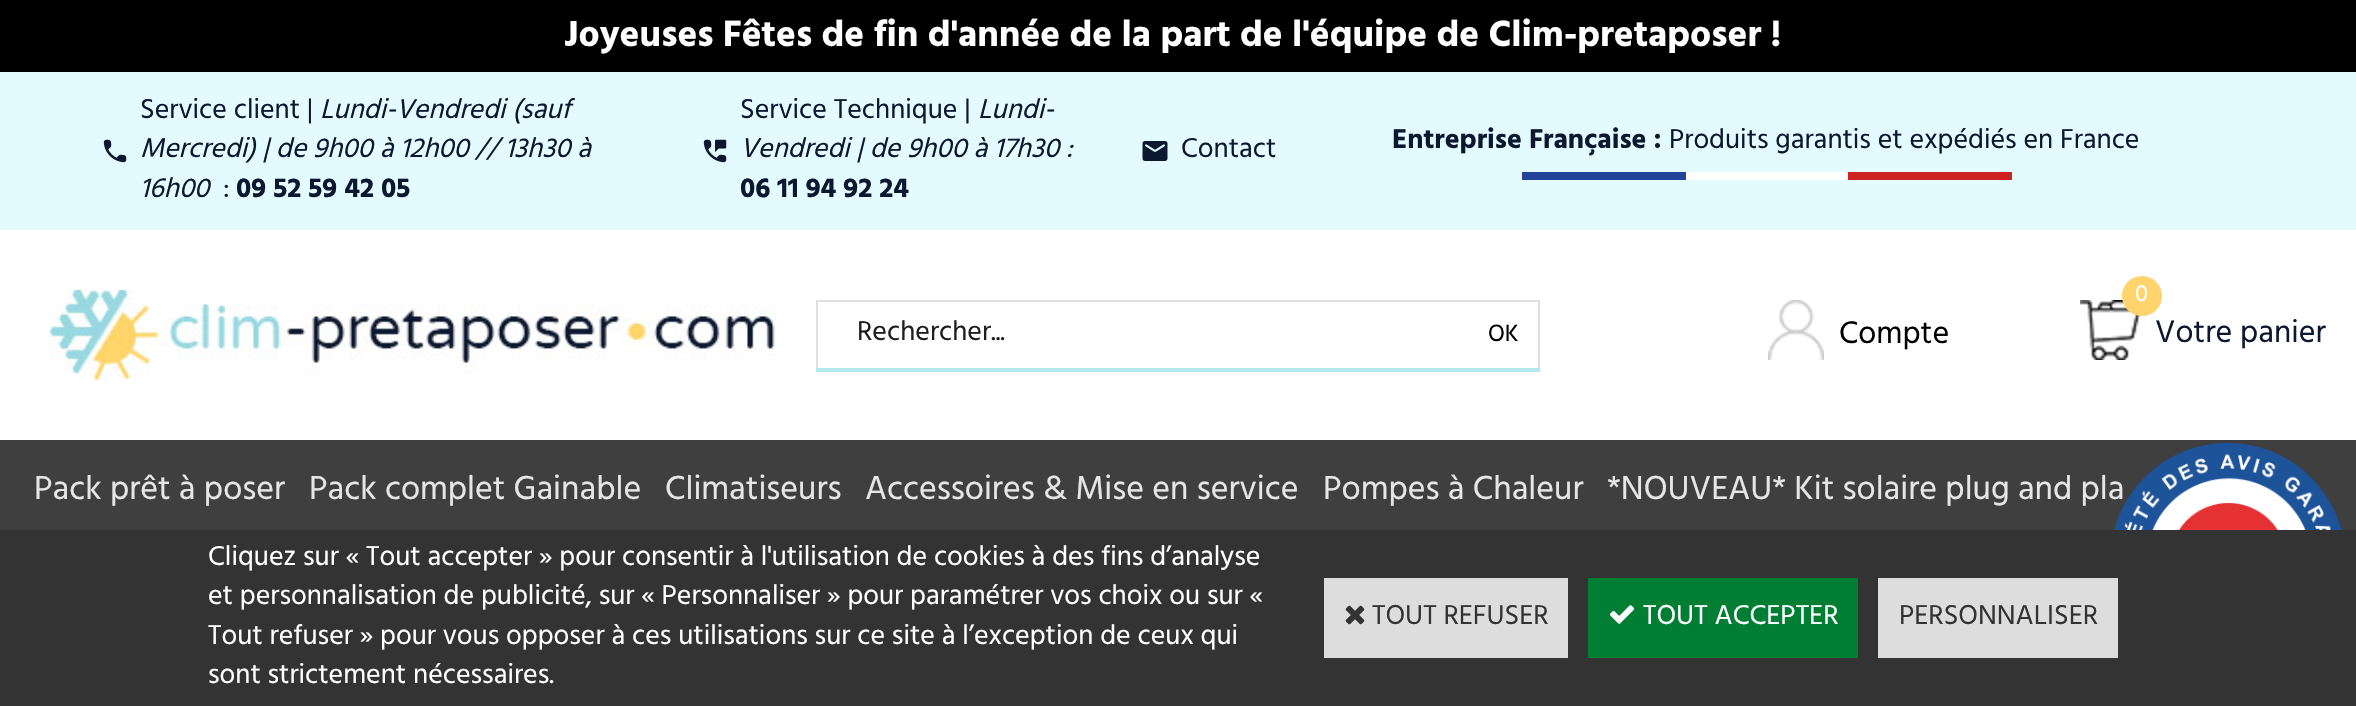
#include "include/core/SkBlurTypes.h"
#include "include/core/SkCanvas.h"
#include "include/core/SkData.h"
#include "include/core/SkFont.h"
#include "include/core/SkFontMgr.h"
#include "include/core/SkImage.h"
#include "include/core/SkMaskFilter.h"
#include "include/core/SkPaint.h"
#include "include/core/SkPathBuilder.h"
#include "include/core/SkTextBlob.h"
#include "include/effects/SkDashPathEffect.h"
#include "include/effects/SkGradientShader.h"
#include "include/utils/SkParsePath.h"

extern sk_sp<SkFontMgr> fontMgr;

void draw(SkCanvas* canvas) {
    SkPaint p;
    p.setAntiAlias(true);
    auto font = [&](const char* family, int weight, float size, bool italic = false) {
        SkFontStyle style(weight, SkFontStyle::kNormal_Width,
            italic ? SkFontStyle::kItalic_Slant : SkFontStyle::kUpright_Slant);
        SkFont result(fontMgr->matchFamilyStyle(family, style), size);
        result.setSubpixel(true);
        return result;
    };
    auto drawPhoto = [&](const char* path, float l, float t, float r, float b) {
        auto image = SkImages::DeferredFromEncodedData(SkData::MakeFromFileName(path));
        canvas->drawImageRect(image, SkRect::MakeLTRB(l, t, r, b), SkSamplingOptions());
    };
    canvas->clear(0xFFFFFFFF);
    p.setColor(0xFF000000);
    canvas->drawRect(SkRect::MakeLTRB(0, 0, 2356, 72), p);
    auto font1 = font("Hind", 700, 37.3f);
    p.setColor(0xFFFFFFFF);
    canvas->drawString("Joyeuses Fêtes de fin d'année de la part de l'équipe de Clim-pretaposer !", 564, 46, font1, p);
    p.setColor(0xFFE3FAFE);
    canvas->drawRect(SkRect::MakeLTRB(0, 72, 2356, 230), p);
    drawPhoto("media/1.png", 103, 139, 127, 163);
    auto font2 = font("Hind", 400, 28);
    p.setColor(0xFF0C1830);
    canvas->drawString("Service client |", 140, 118, font2, p);
    auto font3 = font("Hind", 400, 28, true);
    {
        const struct { const char* s; float x, y; } items[] = {
            {"Lundi-Vendredi (sauf", 320, 118},
            {"Mercredi) | de 9h00 à 12h00 // 13h30 à", 140, 157},
            {"16h00", 140, 197},
        };
        for (auto [s, x, y] : items) {
            canvas->drawString(s, x, y, font3, p);
        }
    }
    canvas->drawString(":", 223, 197, font2, p);
    auto font4 = font("Hind", 700, 28);
    canvas->drawString("09 52 59 42 05", 236, 197, font4, p);
    drawPhoto("media/2.png", 703, 139, 727, 163);
    canvas->drawString("Service Technique |", 740, 118, font2, p);
    canvas->drawString("Lundi-", 978, 118, font3, p);
    canvas->drawString("Vendredi | de 9h00 à 17h30 :", 740, 157, font3, p);
    canvas->drawString("06 11 94 92 24", 740, 197, font4, p);
    drawPhoto("media/3.png", 1142, 141, 1168, 161);
    canvas->drawString("Contact", 1181, 157, font2, p);
    canvas->drawString("Entreprise Française :", 1392, 148, font4, p);
    canvas->drawString("Produits garantis et expédiés en France", 1669, 148, font2, p);
    {
        const struct { float l, t, r, b; SkColor color; } items[] = {
            {1522, 172, 1686, 180, 0xFF24449C},
            {1686, 172, 1848, 180, 0xFFFFFFFF},
            {1848, 172, 2012, 180, 0xFFCF2323},
        };
        for (auto [l, t, r, b, color] : items) {
            p.setColor(color);
            canvas->drawRect(SkRect::MakeLTRB(l, t, r, b), p);
        }
    }
    drawPhoto("media/4.png", 50, 290, 776, 380);
    {
        const struct { float l, t, r, b; SkColor color; } items[] = {
            {816, 368, 1540, 372, 0xFFB1E9EF},
            {816, 300, 1540, 302, 0xFFDFDFDF},
            {816, 300, 818, 368, 0xFFDFDFDF},
        };
        for (auto [l, t, r, b, color] : items) {
            p.setColor(color);
            canvas->drawRect(SkRect::MakeLTRB(l, t, r, b), p);
        }
    }
    p.setColor(0xFF1E1E1E);
    canvas->drawString("Rechercher...", 857, 340, font2, p);
    p.setColor(0xFFDFDFDF);
    canvas->drawRect(SkRect::MakeLTRB(1538, 300, 1540, 368), p);
    auto font5 = font("Hind", 400, 24);
    p.setColor(0xFF000000);
    canvas->drawString("OK", 1488, 341, font5, p);
    drawPhoto("media/5.png", 1768, 300, 1824, 360);
    auto font6 = font("Hind", 400, 32);
    canvas->drawString("Compte", 1839, 343, font6, p);
    drawPhoto("media/6.png", 2080, 300, 2140, 360);
    p.setColor(0xFFFFD46C);
    canvas->drawCircle(2142, 296, 20, p);
    p.setColor(0xFFFFFFFF);
    canvas->drawString("0", 2135, 301, font5, p);
    p.setColor(0xFF0C1830);
    canvas->drawString("Votre panier", 2155, 342, font6, p);
    p.setColor(0xFF3F3F3F);
    canvas->drawRect(SkRect::MakeLTRB(0, 440, 2356, 530), p);
    auto font7 = font("Hind", 400, 34);
    p.setColor(0xFFE6E6E6);
    {
        const struct { const char* s; float x, y; } items[] = {
            {"Pack prêt à poser", 34, 499},
            {"Pack complet Gainable", 309, 499},
            {"Climatiseurs", 665, 499},
            {"Accessoires & Mise en service", 865, 499},
            {"Pompes à Chaleur", 1323, 499},
            {"*NOUVEAU* Kit solaire plug and pla", 1607, 499},
        };
        for (auto [s, x, y] : items) {
            canvas->drawString(s, x, y, font7, p);
        }
    }
    p.setColor(0xFF333333);
    canvas->drawRect(SkRect::MakeLTRB(0, 530, 2356, 706), p);
    p.setColor(0xFFFFFFFF);
    {
        const struct { const char* s; float x, y; } items[] = {
            {"Cliquez sur « Tout accepter » pour consentir à l'utilisation de cookies à des fins d’analyse", 208, 565},
            {"et personnalisation de publicité, sur « Personnaliser » pour paramétrer vos choix ou sur «", 208, 604},
            {"Tout refuser » pour vous opposer à ces utilisations sur ce site à l’exception de ceux qui", 208, 644},
            {"sont strictement nécessaires.", 208, 683},
        };
        for (auto [s, x, y] : items) {
            canvas->drawString(s, x, y, font2, p);
        }
    }
    p.setColor(0xFFDDDDDD);
    canvas->drawRect(SkRect::MakeLTRB(1324, 578, 1568, 658), p);
    drawPhoto("media/7.png", 1345, 605, 1365, 625);
    p.setColor(0xFF333333);
    canvas->drawString("TOUT REFUSER", 1372, 624, font2, p);
    p.setColor(0xFF007E33);
    canvas->drawRect(SkRect::MakeLTRB(1588, 578, 1858, 658), p);
    drawPhoto("media/8.png", 1609, 605, 1635, 624);
    p.setColor(0xFFFFFFFF);
    canvas->drawString("TOUT ACCEPTER", 1643, 624, font2, p);
    p.setColor(0xFFDDDDDD);
    canvas->drawRect(SkRect::MakeLTRB(1878, 578, 2118, 658), p);
    p.setColor(0xFF333333);
    canvas->drawString("PERSONNALISER", 1899, 624, font2, p);
    drawPhoto("media/9.png", 2113, 442, 2342, 530);
}
